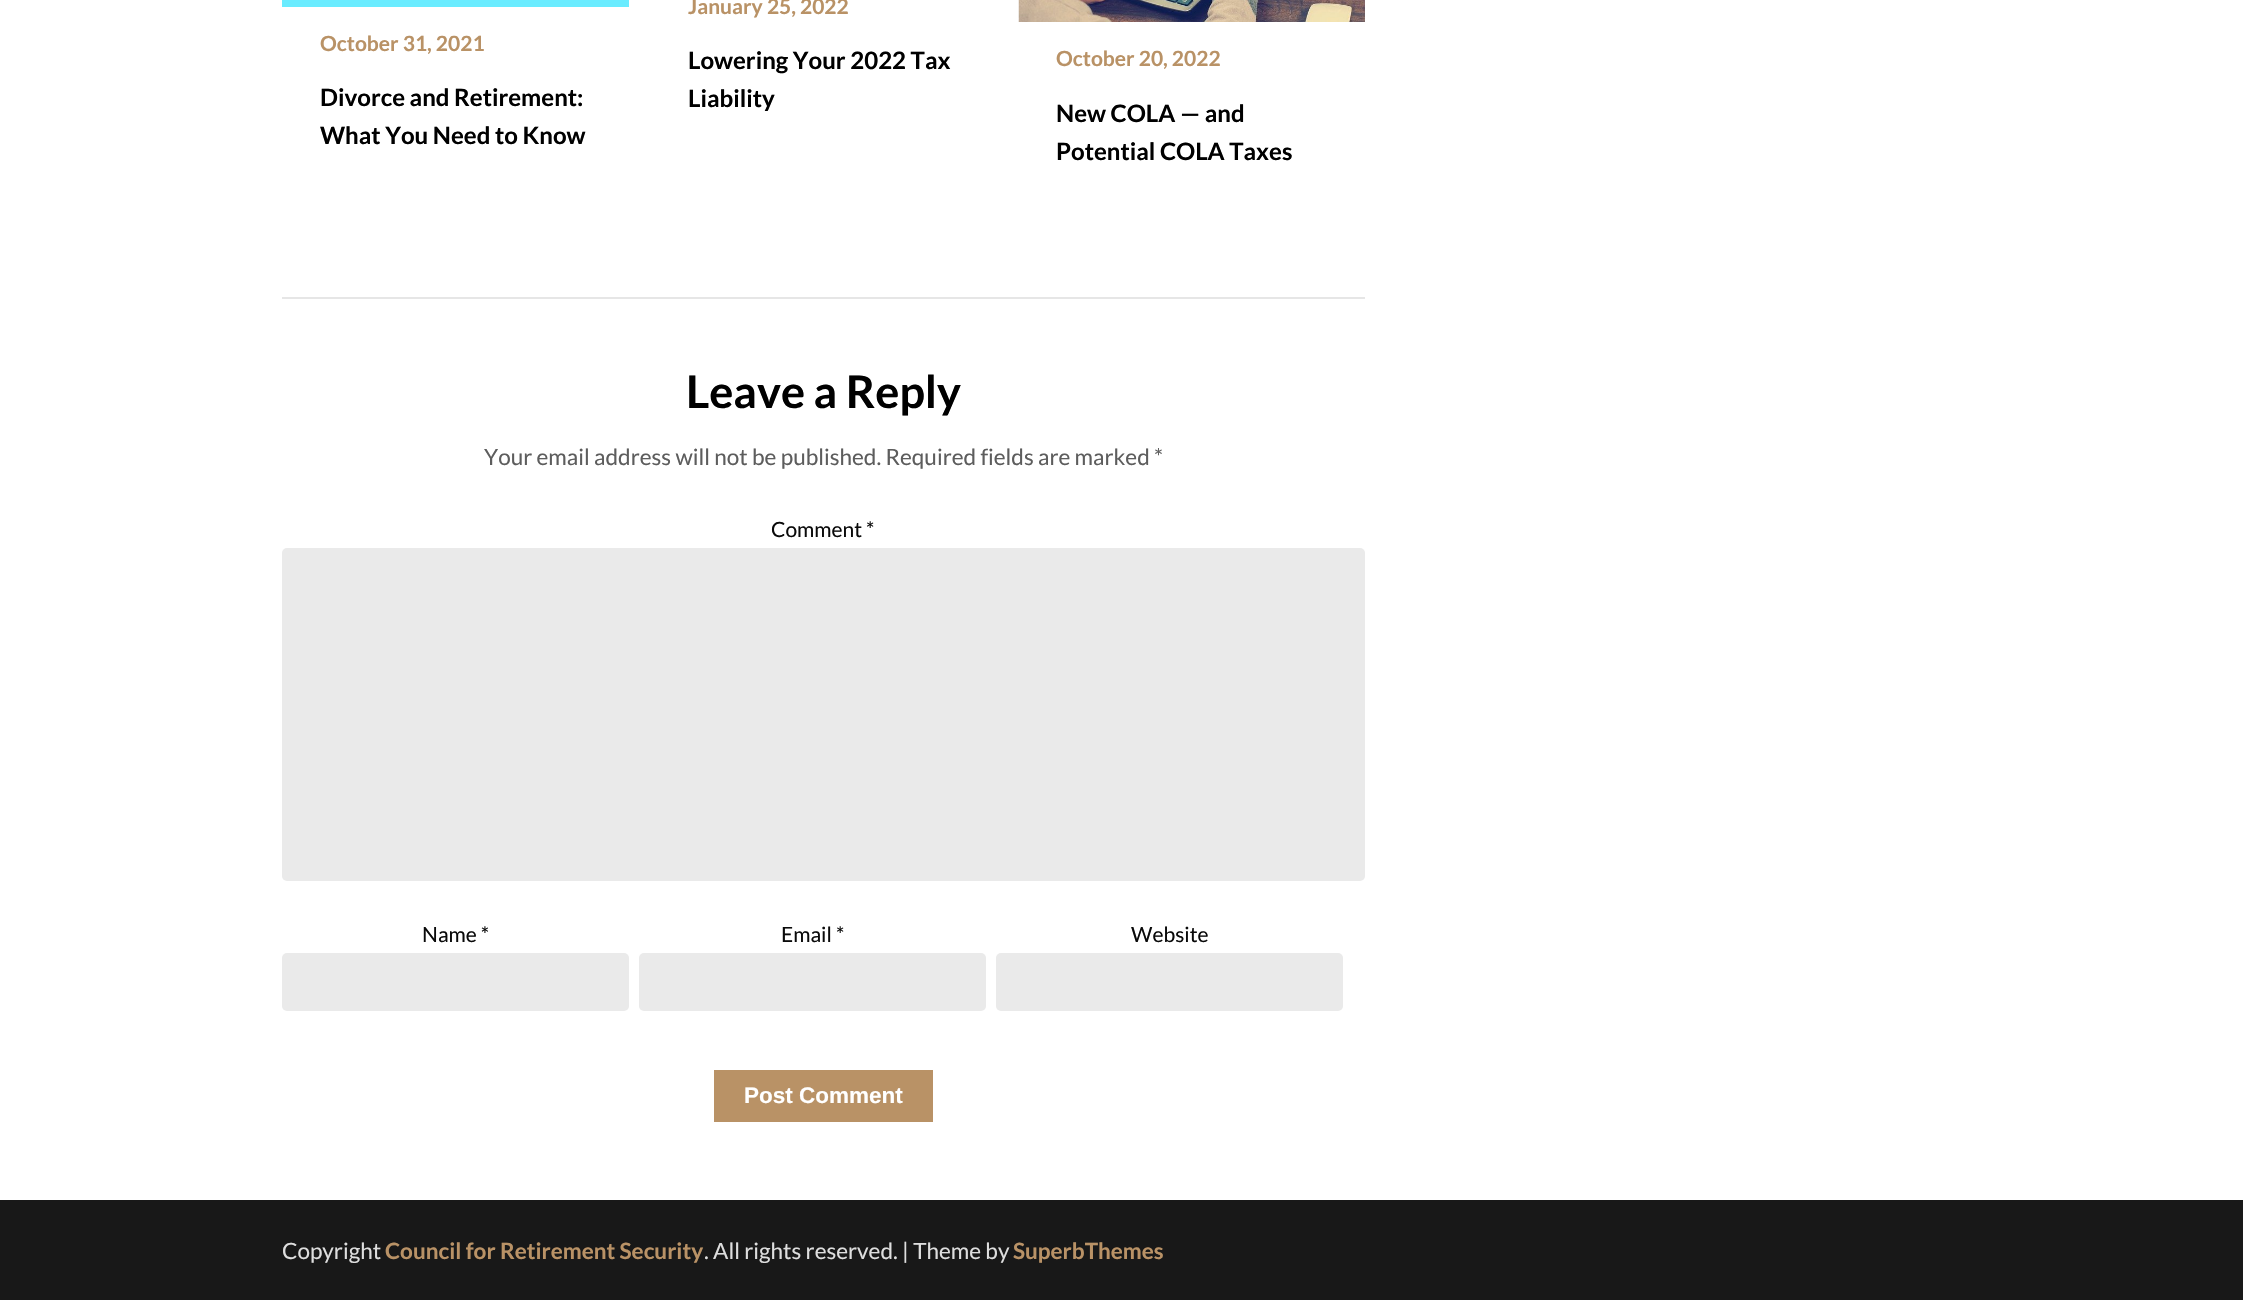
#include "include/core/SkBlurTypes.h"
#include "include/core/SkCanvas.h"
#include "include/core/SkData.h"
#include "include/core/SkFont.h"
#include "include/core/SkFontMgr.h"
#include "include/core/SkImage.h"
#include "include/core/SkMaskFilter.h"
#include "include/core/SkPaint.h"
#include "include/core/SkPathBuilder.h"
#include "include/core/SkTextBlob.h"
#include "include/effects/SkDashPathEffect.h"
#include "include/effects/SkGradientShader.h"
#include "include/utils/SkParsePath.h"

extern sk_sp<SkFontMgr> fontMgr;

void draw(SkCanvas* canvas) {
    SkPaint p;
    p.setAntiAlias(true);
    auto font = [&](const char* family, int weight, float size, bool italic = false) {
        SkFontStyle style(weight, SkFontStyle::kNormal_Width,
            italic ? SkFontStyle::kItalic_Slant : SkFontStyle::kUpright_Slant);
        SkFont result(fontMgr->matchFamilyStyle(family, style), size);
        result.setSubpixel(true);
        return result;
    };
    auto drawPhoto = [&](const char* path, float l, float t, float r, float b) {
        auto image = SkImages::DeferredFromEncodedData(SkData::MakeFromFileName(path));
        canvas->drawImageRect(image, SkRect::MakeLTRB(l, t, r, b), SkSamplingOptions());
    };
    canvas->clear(0xFFFFFFFF);
    p.setColor(0xFF69ECFF);
    canvas->drawRect(SkRect::MakeLTRB(282, 0, 629, 7), p);
    auto font1 = font("Lato", 700, 21);
    p.setColor(0xFFB99266);
    canvas->drawString("October 31, 2021", 320, 51, font1, p);
    auto font2 = font("Lato", 700, 24);
    p.setColor(0xFF000000);
    canvas->drawString("Divorce and Retirement:", 320, 106, font2, p);
    canvas->drawString("What You Need to Know", 320, 144, font2, p);
    p.setColor(0xFFB99266);
    canvas->drawString("January 25, 2022", 688, 14, font1, p);
    p.setColor(0xFF000000);
    canvas->drawString("Lowering Your 2022 Tax", 688, 69, font2, p);
    canvas->drawString("Liability", 688, 107, font2, p);
    drawPhoto("media/1.png", 1018, 0, 1365, 22);
    p.setColor(0xFFB99266);
    canvas->drawString("October 20, 2022", 1056, 66, font1, p);
    p.setColor(0xFF000000);
    canvas->drawString("New COLA — and", 1056, 122, font2, p);
    canvas->drawString("Potential COLA Taxes", 1056, 160, font2, p);
    p.setColor(0xFFE6E6E6);
    canvas->drawRect(SkRect::MakeLTRB(282, 297, 1365, 299), p);
    auto font3 = font("Lato", 700, 45);
    p.setColor(0xFF000000);
    canvas->drawString("Leave a Reply", 686, 408, font3, p);
    auto font4 = font("Lato", 400, 22.5f);
    p.setColor(0xFF5D5D5D);
    canvas->drawString("Your email address will not be published. Required fields are marked *", 484, 465, font4, p);
    auto font5 = font("Lato", 400, 21);
    p.setColor(0xFF0A0A0A);
    canvas->drawString("Comment *", 771, 537, font5, p);
    p.setColor(0xFFEAEAEA);
    canvas->drawRoundRect(SkRect::MakeLTRB(282, 548, 1365, 881), 5, 5, p);
    p.setColor(0xFF0A0A0A);
    canvas->drawString("Name *", 422, 942, font5, p);
    p.setColor(0xFFEAEAEA);
    canvas->drawRoundRect(SkRect::MakeLTRB(282, 953, 629, 1011), 5, 5, p);
    p.setColor(0xFF0A0A0A);
    canvas->drawString("Email *", 781, 942, font5, p);
    p.setColor(0xFFEAEAEA);
    canvas->drawRoundRect(SkRect::MakeLTRB(639, 953, 986, 1011), 5, 5, p);
    p.setColor(0xFF0A0A0A);
    canvas->drawString("Website", 1131, 942, font5, p);
    p.setColor(0xFFEAEAEA);
    canvas->drawRoundRect(SkRect::MakeLTRB(996, 953, 1343, 1011), 5, 5, p);
    p.setColor(0xFFB99266);
    canvas->drawRect(SkRect::MakeLTRB(714, 1070, 933, 1122), p);
    auto font6 = font("Liberation Sans", 700, 22.5f);
    p.setColor(0xFFFFFFFF);
    canvas->drawString("Post Comment", 744, 1103, font6, p);
    p.setColor(0xFF181818);
    canvas->drawRect(SkRect::MakeLTRB(0, 1200, 2243, 1300), p);
    p.setColor(0xFFDEDEDE);
    canvas->drawString("Copyright", 282, 1259, font4, p);
    auto font7 = font("Lato", 700, 22.5f);
    p.setColor(0xFFB99266);
    canvas->drawString("Council for Retirement Security", 385, 1259, font7, p);
    p.setColor(0xFFDEDEDE);
    canvas->drawString(". All rights reserved. | Theme by", 704, 1259, font4, p);
    p.setColor(0xFFB99266);
    canvas->drawString("SuperbThemes", 1013, 1259, font7, p);
}
